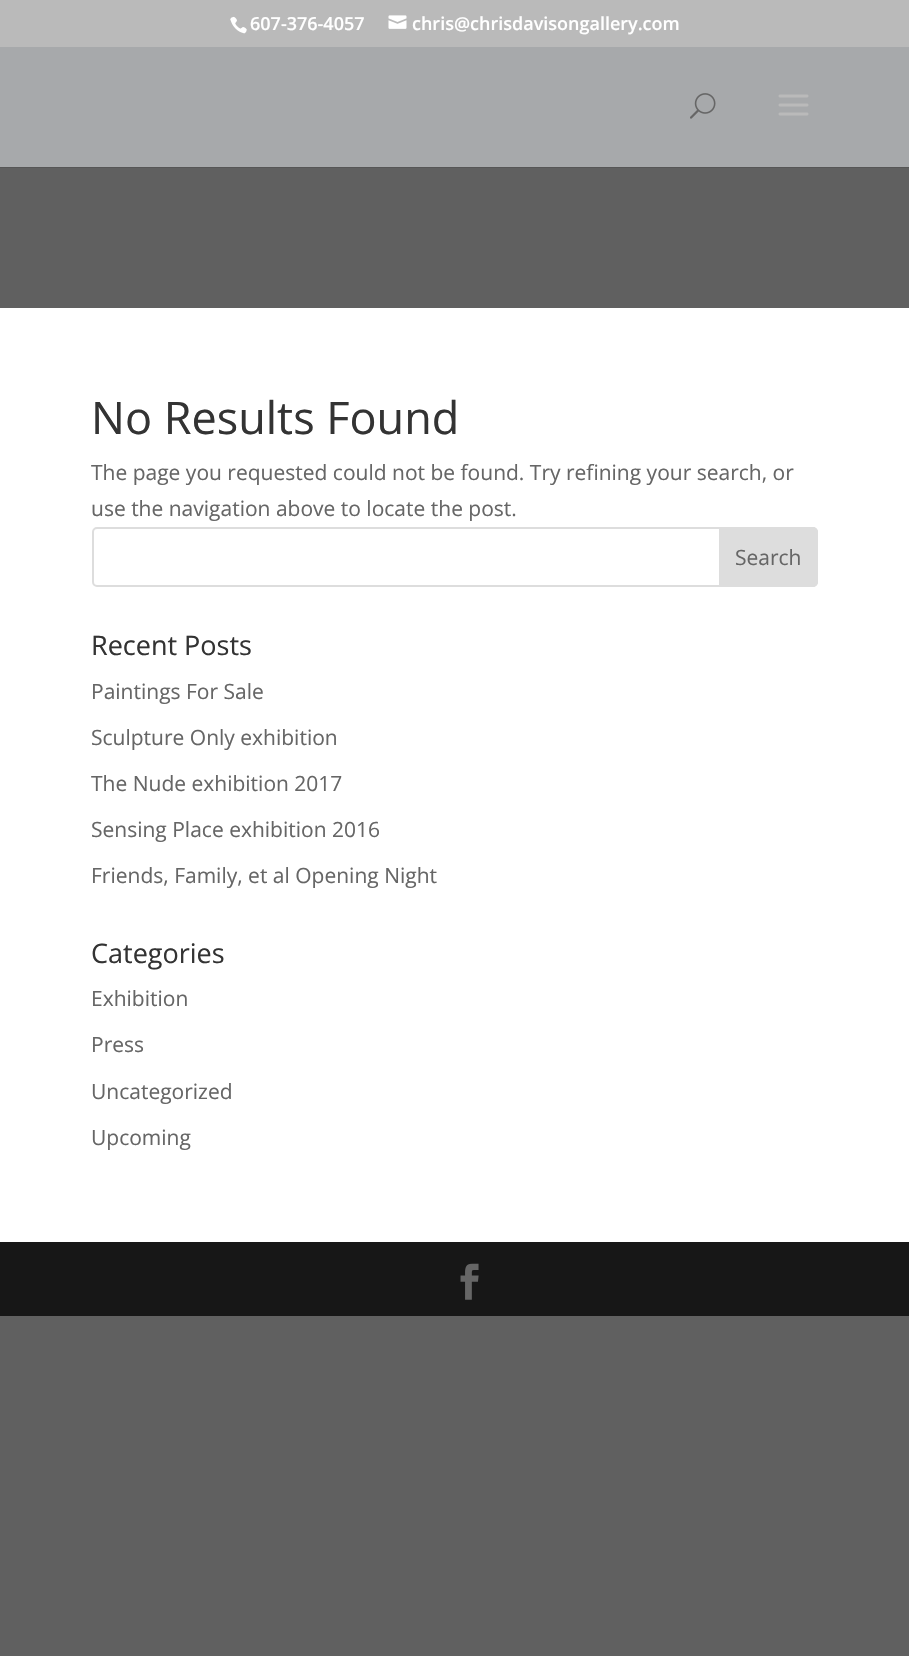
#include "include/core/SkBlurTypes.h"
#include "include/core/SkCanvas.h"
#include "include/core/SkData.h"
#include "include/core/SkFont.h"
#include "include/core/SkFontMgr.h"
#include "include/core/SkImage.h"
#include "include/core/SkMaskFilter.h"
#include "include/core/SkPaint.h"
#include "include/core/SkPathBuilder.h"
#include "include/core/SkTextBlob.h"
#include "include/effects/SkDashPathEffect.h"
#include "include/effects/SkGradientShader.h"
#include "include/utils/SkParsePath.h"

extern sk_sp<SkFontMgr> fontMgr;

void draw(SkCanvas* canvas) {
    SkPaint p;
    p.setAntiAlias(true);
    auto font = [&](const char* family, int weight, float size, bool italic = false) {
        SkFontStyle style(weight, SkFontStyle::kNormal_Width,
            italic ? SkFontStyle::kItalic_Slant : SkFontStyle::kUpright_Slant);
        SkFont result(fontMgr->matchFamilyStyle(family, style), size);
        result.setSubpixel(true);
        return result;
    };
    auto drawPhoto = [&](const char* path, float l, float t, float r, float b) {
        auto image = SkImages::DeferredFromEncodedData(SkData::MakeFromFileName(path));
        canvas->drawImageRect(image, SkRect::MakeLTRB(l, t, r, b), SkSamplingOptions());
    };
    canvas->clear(0xFF606060);
    p.setColor(0xFFBABABA);
    canvas->drawRect(SkRect::MakeLTRB(0, 0, 909, 47), p);
    drawPhoto("media/1.png", 230, 16, 247, 34);
    auto font1 = font("Open Sans", 600, 18);
    p.setColor(0xFFFFFFFF);
    canvas->drawString("607-376-4057", 250, 30, font1, p);
    drawPhoto("media/2.png", 388, 15, 407, 29);
    canvas->drawString("chris@chrisdavisongallery.com", 412, 30, font1, p);
    p.setColor(0xFF565656);
    canvas->drawRect(SkRect::MakeLTRB(0, 167, 909, 168), p);
    p.setColor(0xFFA7A9AB);
    canvas->drawRect(SkRect::MakeLTRB(0, 47, 909, 167), p);
    drawPhoto("media/3.png", 690, 93, 716, 119);
    drawPhoto("media/4.png", 778, 94, 809, 116);
    p.setColor(0xFFFFFFFF);
    canvas->drawRect(SkRect::MakeLTRB(0, 308, 909, 1242), p);
    auto font2 = font("Open Sans", 400, 45);
    p.setColor(0xFF333333);
    canvas->drawString("No Results Found", 91, 434, font2, p);
    auto font3 = font("Open Sans", 400, 21);
    p.setColor(0xFF666666);
    canvas->drawString("The page you requested could not be found. Try refining your search, or", 91, 480, font3, p);
    canvas->drawString("use the navigation above to locate the post.", 91, 516, font3, p);
    p.setStyle(SkPaint::kStroke_Style);
    p.setStrokeWidth(2);
    p.setColor(0xFFDDDDDD);
    canvas->drawRoundRect(SkRect::MakeLTRB(93, 528, 817, 586), 4, 4, p);
    p.setStyle(SkPaint::kFill_Style);
    canvas->drawPath(SkPathBuilder().moveTo(720, 528).lineTo(813, 528).cubicTo(815, 528, 817, 530, 817, 532).lineTo(817, 582).cubicTo(817, 584, 815, 586, 813, 586).lineTo(720, 586).close().detach(), p);
    p.setStyle(SkPaint::kStroke_Style);
    canvas->drawPath(SkPathBuilder().moveTo(720, 528).lineTo(813, 528).cubicTo(815, 528, 817, 530, 817, 532).lineTo(817, 582).cubicTo(817, 584, 815, 586, 813, 586).lineTo(720, 586).close().detach(), p);
    p.setStyle(SkPaint::kFill_Style);
    p.setColor(0xFF666666);
    canvas->drawString("Search", 735, 565, font3, p);
    auto font4 = font("Open Sans", 400, 27);
    p.setColor(0xFF333333);
    canvas->drawString("Recent Posts", 91, 655, font4, p);
    p.setColor(0xFF666666);
    {
        const struct { const char* s; float x, y; } items[] = {
            {"Paintings For Sale", 91, 699},
            {"Sculpture Only exhibition", 91, 745},
            {"The Nude exhibition 2017", 91, 791},
            {"Sensing Place exhibition 2016", 91, 837},
            {"Friends, Family, et al Opening Night", 91, 883},
        };
        for (auto [s, x, y] : items) {
            canvas->drawString(s, x, y, font3, p);
        }
    }
    p.setColor(0xFF333333);
    canvas->drawString("Categories", 91, 963, font4, p);
    p.setColor(0xFF666666);
    {
        const struct { const char* s; float x, y; } items[] = {
            {"Exhibition", 91, 1006},
            {"Press", 91, 1052},
            {"Uncategorized", 91, 1099},
            {"Upcoming", 91, 1145},
        };
        for (auto [s, x, y] : items) {
            canvas->drawString(s, x, y, font3, p);
        }
    }
    p.setColor(0xFF171717);
    canvas->drawRect(SkRect::MakeLTRB(0, 1242, 909, 1316), p);
    drawPhoto("media/5.png", 460, 1263, 479, 1300);
}
